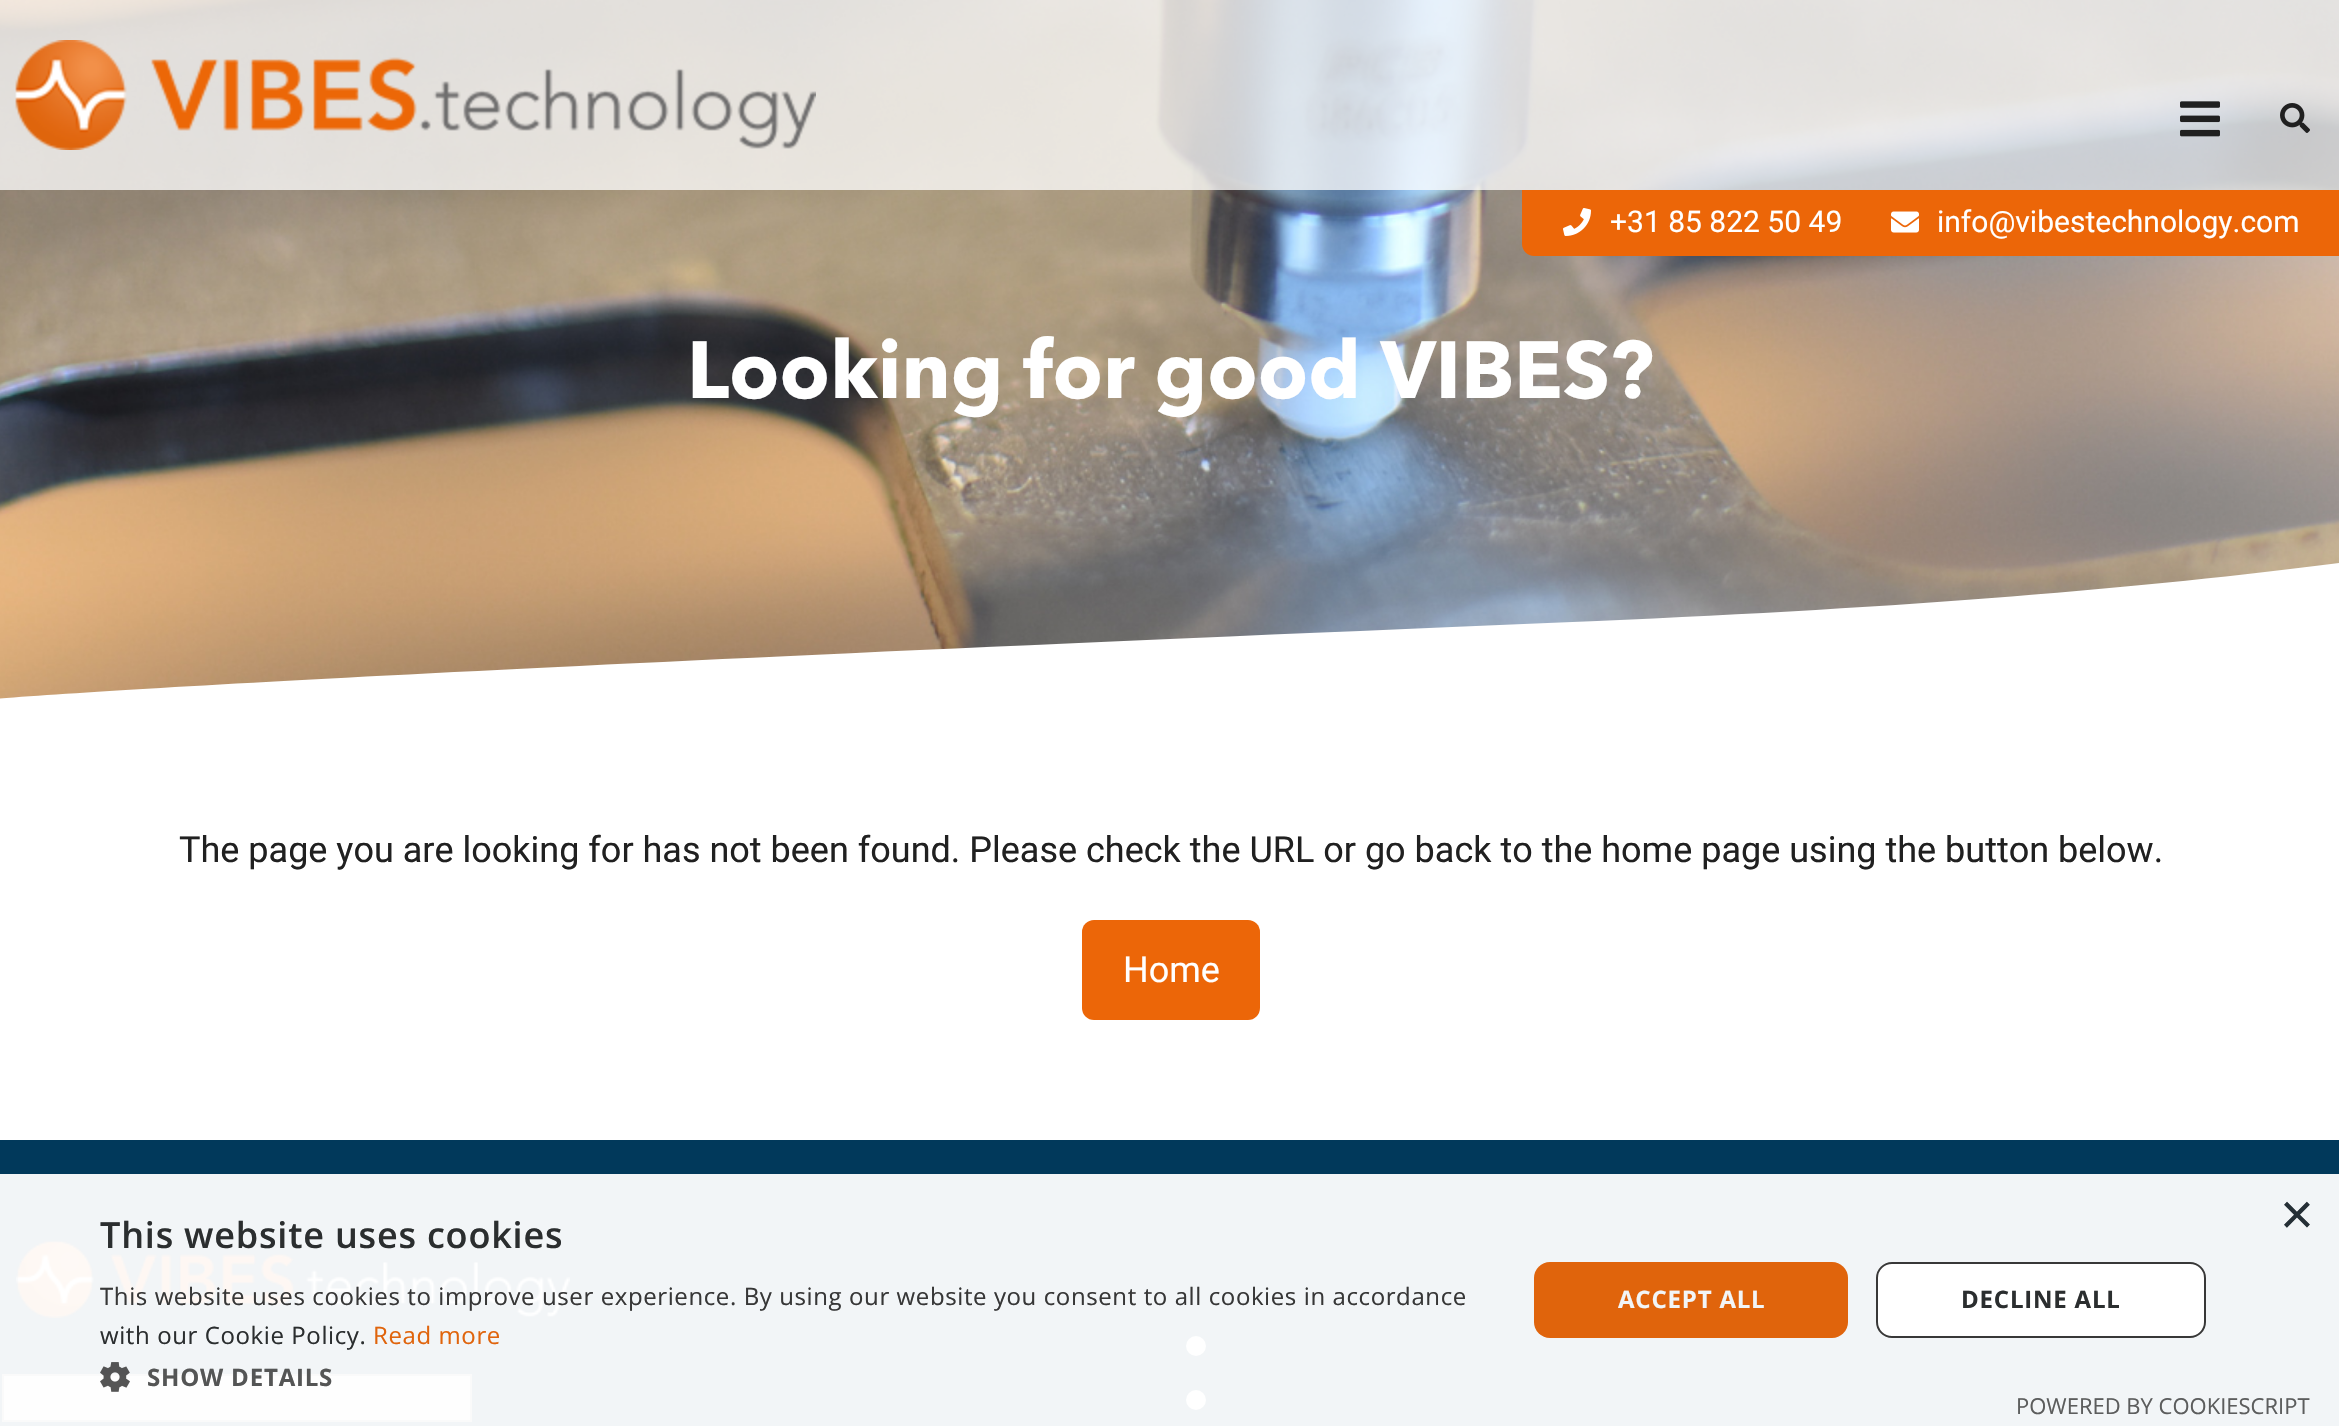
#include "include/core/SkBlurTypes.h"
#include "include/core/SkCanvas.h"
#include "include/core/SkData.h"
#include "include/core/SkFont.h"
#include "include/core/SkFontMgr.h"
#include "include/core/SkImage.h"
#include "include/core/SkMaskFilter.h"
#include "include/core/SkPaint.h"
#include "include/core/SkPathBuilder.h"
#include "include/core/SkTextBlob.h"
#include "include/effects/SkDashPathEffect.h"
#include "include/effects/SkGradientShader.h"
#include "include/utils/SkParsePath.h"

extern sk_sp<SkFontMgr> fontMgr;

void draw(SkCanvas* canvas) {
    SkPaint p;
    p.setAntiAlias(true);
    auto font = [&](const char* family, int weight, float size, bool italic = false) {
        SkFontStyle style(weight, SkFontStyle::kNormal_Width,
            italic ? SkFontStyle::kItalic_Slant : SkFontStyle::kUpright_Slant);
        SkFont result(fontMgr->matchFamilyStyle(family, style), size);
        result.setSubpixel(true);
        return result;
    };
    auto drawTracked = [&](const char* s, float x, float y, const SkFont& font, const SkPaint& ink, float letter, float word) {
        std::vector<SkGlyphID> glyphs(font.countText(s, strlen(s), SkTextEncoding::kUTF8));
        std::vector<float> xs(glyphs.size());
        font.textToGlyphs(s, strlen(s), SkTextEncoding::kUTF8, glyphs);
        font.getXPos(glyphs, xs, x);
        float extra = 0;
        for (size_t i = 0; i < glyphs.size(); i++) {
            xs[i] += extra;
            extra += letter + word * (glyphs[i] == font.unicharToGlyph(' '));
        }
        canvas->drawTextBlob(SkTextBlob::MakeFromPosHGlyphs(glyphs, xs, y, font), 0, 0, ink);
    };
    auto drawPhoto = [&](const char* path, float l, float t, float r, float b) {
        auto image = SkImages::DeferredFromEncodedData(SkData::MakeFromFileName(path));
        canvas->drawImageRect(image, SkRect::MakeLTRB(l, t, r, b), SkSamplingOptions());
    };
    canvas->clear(0xFFFFFFFF);
    drawPhoto("media/6.png", 0, 0, 2339, 699);
    p.setColor(0xBFFFFFFF);
    canvas->drawRect(SkRect::MakeLTRB(0, 0, 2339, 190), p);
    drawPhoto("media/1.png", 15, 40, 816, 150);
    drawPhoto("media/2.png", 2180, 101, 2220, 137);
    drawPhoto("media/3.png", 2280, 103, 2310, 133);
    p.setColor(0xFFEC6608);
    canvas->drawPath(SkPathBuilder().moveTo(1522, 190).lineTo(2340, 190).lineTo(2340, 256).lineTo(1534, 256).cubicTo(1527.5f, 256, 1522, 250.5f, 1522, 244).close().detach(), p);
    drawPhoto("media/4.png", 1563, 208, 1591, 236);
    auto font1 = font("Roboto", 400, 30);
    p.setColor(0xFFFFFFFF);
    canvas->drawString("+31 85 822 50 49", 1610, 232, font1, p);
    drawPhoto("media/5.png", 1891, 211, 1919, 233);
    canvas->drawString("info@vibestechnology.com", 1937, 232, font1, p);
    auto font2 = font("Avenir Next", 700, 80);
    canvas->drawString("Looking for good VIBES?", 687, 398, font2, p);
    canvas->save();
    canvas->clipRect(SkRect::MakeLTRB(0, 200, 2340, 700));
    canvas->drawPath(SkPathBuilder().moveTo(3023, 259).cubicTo(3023, 259, 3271, 551, 1597, 621).cubicTo(-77, 690, -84, 707, -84, 707).lineTo(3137, 719).close().detach(), p);
    canvas->restore();
    auto font3 = font("Roboto", 400, 36);
    p.setColor(0xFF202020);
    canvas->drawString("The page you are looking for has not been found. Please check the URL or go back to the home page using the button below.", 179, 862, font3, p);
    p.setColor(0xFFEC6608);
    canvas->drawRoundRect(SkRect::MakeLTRB(1082, 920, 1260, 1020), 12, 12, p);
    p.setColor(0xFFFFFFFF);
    canvas->drawString("Home", 1123, 982, font3, p);
    p.setColor(0xFF01395B);
    canvas->drawRect(SkRect::MakeLTRB(0, 1140, 2339, 1174), p);
    p.setColor(0xFFF2F5F7);
    canvas->drawRect(SkRect::MakeLTRB(0, 1174, 2339, 1426), p);
    drawPhoto("media/7.png", 16, 1240, 570, 1318);
    p.setColor(0xFFFFFFFF);
    canvas->drawCircle(1196, 1346, 10, p);
    canvas->drawCircle(1196, 1400, 10, p);
    auto font4 = font("Liberation Sans", 400, 58);
    p.setColor(0xFF252F36);
    canvas->drawString("×", 2280, 1234, font4, p);
    auto font5 = font("Open Sans", 600, 36);
    p.setColor(0xFF2B2E2F);
    drawTracked("This website uses cookies", 100, 1248, font5, p, 0.8f, 0);
    auto font6 = font("Open Sans", 400, 24);
    p.setColor(0xFF373737);
    drawTracked("This website uses cookies to improve user experience. By using our website you consent to all cookies in accordance", 100, 1305, font6, p, 0.6f, 0);
    p.setColor(0xFF2B2E2F);
    drawTracked("with our Cookie Policy.", 100, 1344, font6, p, 0.6f, 0);
    p.setColor(0xFFE0640C);
    drawTracked("Read more", 373, 1344, font6, p, 0.6f, 0);
    p.setColor(0xFFFEFEFE);
    canvas->drawRect(SkRect::MakeLTRB(3, 1375, 471, 1421), p);
    p.setStyle(SkPaint::kStroke_Style);
    p.setStrokeWidth(2);
    p.setColor(0xFFFAFAFA);
    canvas->drawRect(SkRect::MakeLTRB(3, 1375, 471, 1421), p);
    drawPhoto("media/8.png", 100, 1362, 130, 1392);
    auto font7 = font("Open Sans", 700, 24);
    p.setStyle(SkPaint::kFill_Style);
    p.setColor(0xFF545555);
    drawTracked("SHOW DETAILS", 147, 1386, font7, p, 0.8f, 0);
    p.setColor(0xFFE0640C);
    canvas->drawRoundRect(SkRect::MakeLTRB(1534, 1262, 1848, 1338), 16, 16, p);
    p.setColor(0xFFF2F5F7);
    drawTracked("ACCEPT ALL", 1618, 1308, font7, p, 0.8f, 0);
    p.setColor(0xF2FFFFFF);
    canvas->drawRoundRect(SkRect::MakeLTRB(1876, 1262, 2206, 1338), 16, 16, p);
    p.setStyle(SkPaint::kStroke_Style);
    p.setColor(0xF22D2D2D);
    canvas->drawRoundRect(SkRect::MakeLTRB(1877, 1263, 2205, 1337), 15, 15, p);
    p.setStyle(SkPaint::kFill_Style);
    p.setColor(0xFF2B2E2F);
    drawTracked("DECLINE ALL", 1961, 1308, font7, p, 0.8f, 0);
    auto font8 = font("Open Sans", 400, 22);
    p.setColor(0xFF5C5D5D);
    canvas->drawString("POWERED BY COOKIESCRIPT", 2016, 1414, font8, p);
}
